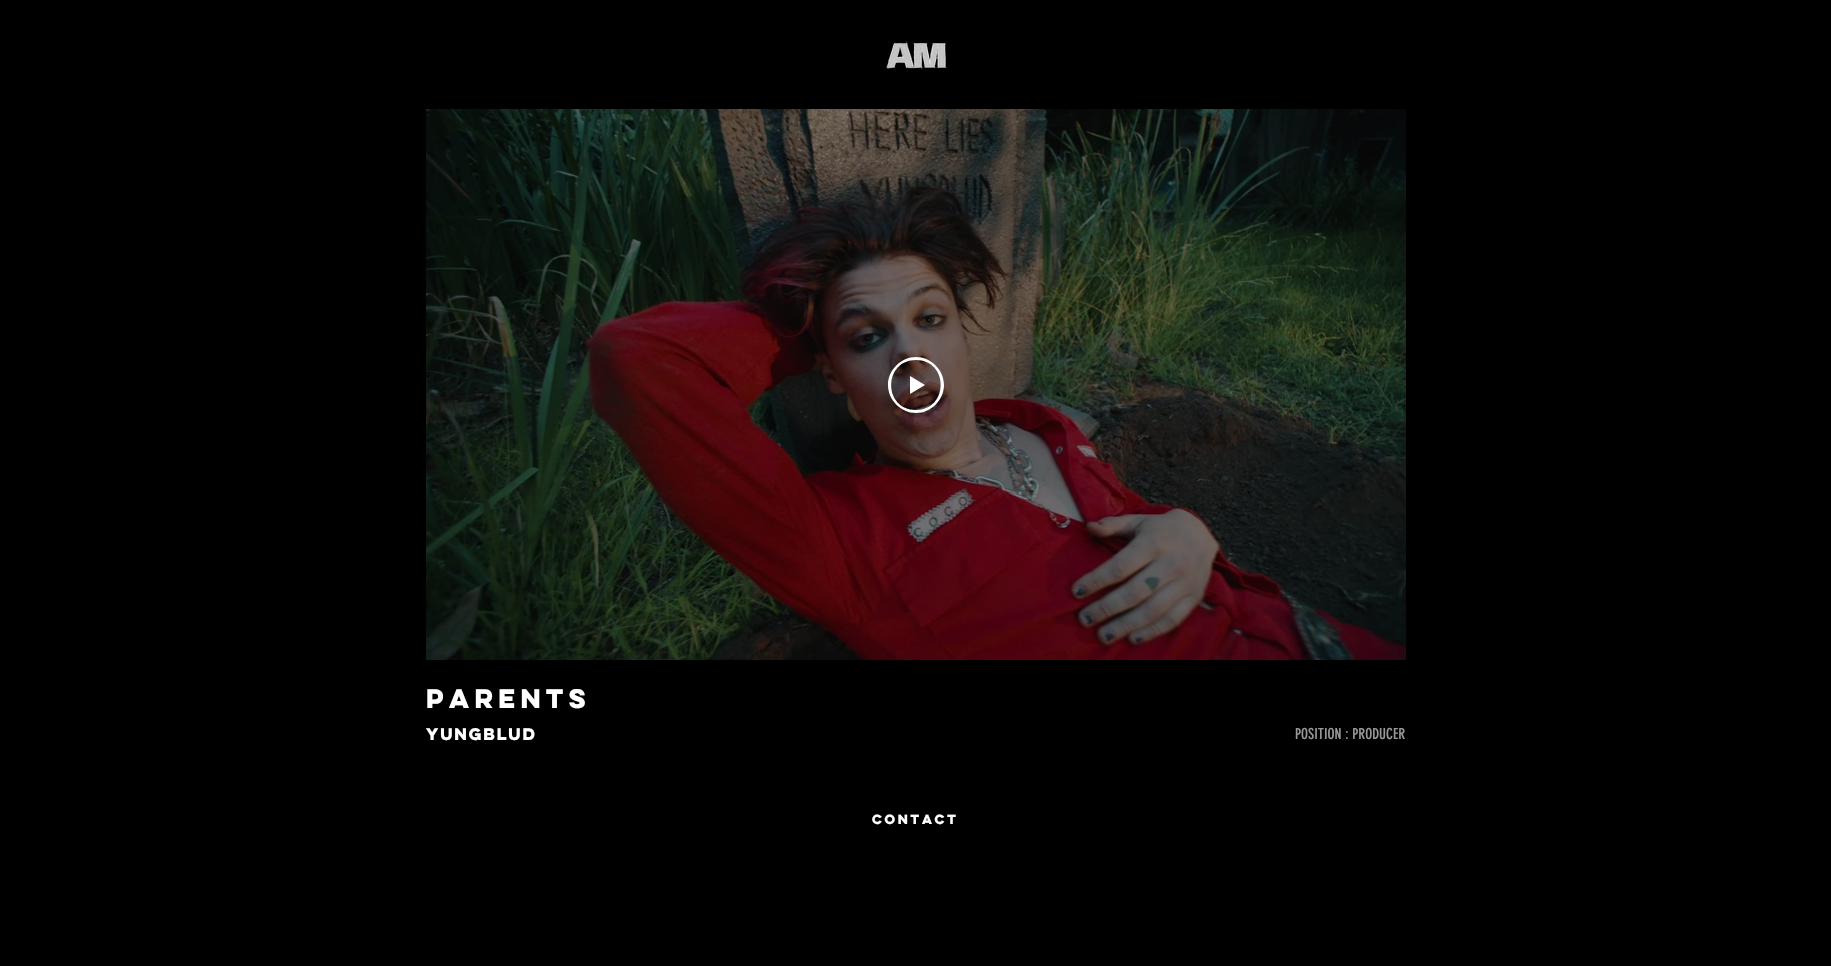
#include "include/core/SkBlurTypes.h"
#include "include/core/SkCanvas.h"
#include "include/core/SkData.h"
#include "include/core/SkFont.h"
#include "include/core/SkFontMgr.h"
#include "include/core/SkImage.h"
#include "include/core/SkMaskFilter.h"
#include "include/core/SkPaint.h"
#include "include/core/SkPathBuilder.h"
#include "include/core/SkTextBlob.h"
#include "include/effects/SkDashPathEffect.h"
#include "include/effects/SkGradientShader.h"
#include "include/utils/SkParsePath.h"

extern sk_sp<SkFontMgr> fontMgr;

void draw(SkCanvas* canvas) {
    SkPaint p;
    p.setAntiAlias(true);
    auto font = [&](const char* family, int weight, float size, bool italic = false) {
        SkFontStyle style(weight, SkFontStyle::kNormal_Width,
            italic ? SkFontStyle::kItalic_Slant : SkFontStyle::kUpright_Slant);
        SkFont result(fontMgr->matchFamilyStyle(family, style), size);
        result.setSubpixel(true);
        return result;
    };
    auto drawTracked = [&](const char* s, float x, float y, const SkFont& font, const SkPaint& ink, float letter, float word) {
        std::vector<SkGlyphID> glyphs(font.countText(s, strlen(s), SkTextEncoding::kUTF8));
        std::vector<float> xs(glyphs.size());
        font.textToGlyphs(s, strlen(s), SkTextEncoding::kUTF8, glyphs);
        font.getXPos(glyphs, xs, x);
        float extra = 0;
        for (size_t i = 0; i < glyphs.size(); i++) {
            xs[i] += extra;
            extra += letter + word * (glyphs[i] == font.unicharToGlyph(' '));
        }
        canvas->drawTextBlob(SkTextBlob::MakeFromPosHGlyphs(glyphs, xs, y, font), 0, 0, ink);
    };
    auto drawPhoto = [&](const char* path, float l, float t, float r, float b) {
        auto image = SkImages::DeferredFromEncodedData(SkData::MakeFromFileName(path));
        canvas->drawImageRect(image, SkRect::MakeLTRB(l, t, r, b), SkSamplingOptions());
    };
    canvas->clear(0xFF000000);
    drawPhoto("media/1.png", 886, 41, 947, 70);
    drawPhoto("media/2.png", 1283, 109, 1406, 660);
    drawPhoto("media/3.png", 426, 109, 1283, 660);
    p.setColor(0xFFFFFFFF);
    canvas->drawPath(SkPathBuilder(SkPathFillType::kEvenOdd).moveTo(916, 410).cubicTo(949, 410, 949, 360, 916, 360).cubicTo(883, 360, 883, 410, 916, 410).close().moveTo(916, 413).cubicTo(901, 413, 888, 400, 888, 385).cubicTo(888, 370, 901, 357, 916, 357).cubicTo(931, 357, 944, 370, 944, 385).cubicTo(944, 400, 931, 413, 916, 413).close().detach(), p);
    canvas->drawPath(SkPathBuilder(SkPathFillType::kEvenOdd).moveTo(925, 385).lineTo(910, 394).lineTo(910, 376).close().detach(), p);
    auto font1 = font("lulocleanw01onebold", 700, 24);
    canvas->drawString("PARENTS", 426, 708, font1, p);
    auto font2 = font("lulocleanw01onebold", 700, 15);
    drawTracked("YUNGBLUD", 426, 740, font2, p, -1.5f, 0);
    auto font3 = font("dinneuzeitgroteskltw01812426", 400, 15);
    p.setColor(0xFF999997);
    canvas->drawString("POSITION : PRODUCER", 1295, 739, font3, p);
    auto font4 = font("lulocleanw01onebold", 700, 12);
    p.setColor(0xFFFFFFFF);
    canvas->drawString("CONTACT", 872, 824, font4, p);
}
